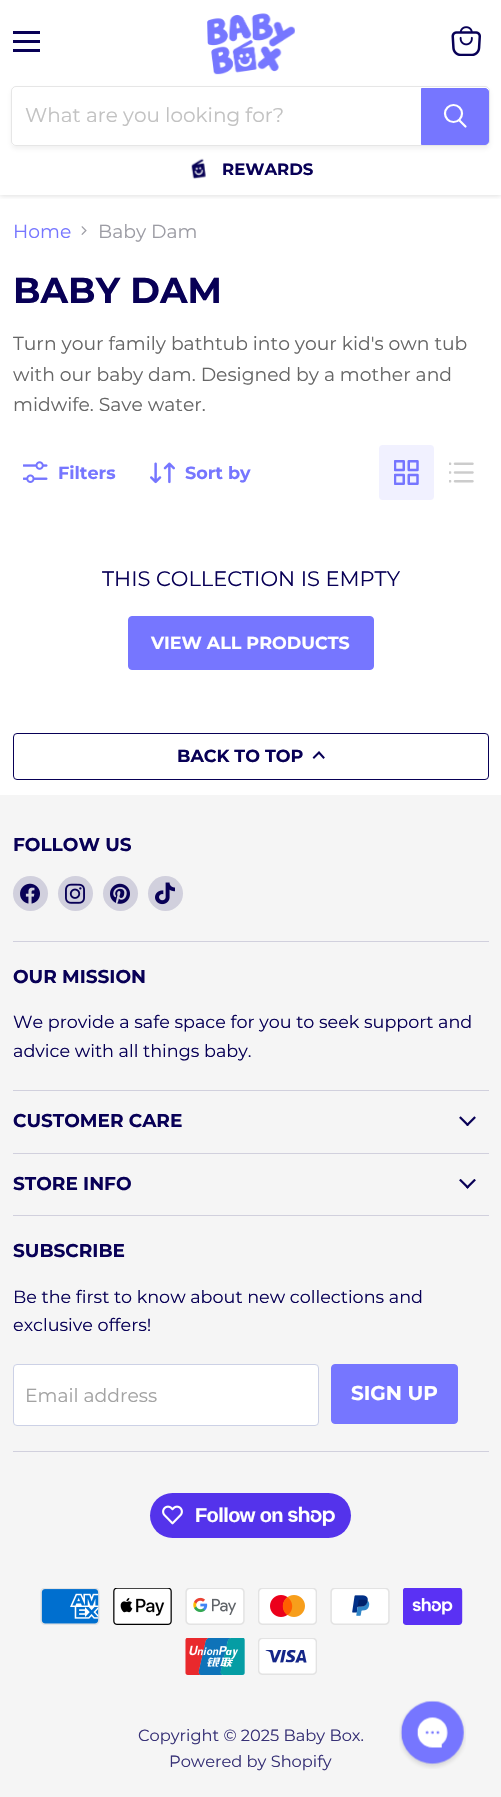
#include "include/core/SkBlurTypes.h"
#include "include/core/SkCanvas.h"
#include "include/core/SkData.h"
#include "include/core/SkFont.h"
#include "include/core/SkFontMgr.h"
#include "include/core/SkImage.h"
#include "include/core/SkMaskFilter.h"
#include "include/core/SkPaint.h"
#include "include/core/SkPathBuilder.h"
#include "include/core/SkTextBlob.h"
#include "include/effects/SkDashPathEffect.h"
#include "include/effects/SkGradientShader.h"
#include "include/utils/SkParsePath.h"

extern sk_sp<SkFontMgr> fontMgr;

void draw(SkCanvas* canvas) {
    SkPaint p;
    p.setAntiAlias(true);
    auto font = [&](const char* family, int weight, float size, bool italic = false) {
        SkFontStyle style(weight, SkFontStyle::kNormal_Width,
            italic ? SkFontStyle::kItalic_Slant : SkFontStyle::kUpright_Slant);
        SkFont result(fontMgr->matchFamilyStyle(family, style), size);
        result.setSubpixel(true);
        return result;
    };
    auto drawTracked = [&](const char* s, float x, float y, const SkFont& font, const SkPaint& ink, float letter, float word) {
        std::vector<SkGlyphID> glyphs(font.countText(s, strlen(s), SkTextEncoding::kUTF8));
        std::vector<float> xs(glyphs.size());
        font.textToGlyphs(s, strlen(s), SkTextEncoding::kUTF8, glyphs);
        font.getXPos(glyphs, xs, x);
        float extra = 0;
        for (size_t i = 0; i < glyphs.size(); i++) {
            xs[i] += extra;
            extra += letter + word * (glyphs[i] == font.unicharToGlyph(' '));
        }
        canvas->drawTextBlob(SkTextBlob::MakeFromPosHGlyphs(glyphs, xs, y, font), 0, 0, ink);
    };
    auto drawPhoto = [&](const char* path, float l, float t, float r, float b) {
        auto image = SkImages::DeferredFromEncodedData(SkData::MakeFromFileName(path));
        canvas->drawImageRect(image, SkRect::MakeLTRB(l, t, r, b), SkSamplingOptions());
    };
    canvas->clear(0xFFFFFFFF);
    canvas->save();
    canvas->clipRect(SkRect::MakeLTRB(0, 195, 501, 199));
    p.setColor(0x40808080);
    p.setMaskFilter(SkMaskFilter::MakeBlur(kNormal_SkBlurStyle, 2.5f));
    canvas->drawRect(SkRect::MakeLTRB(0, 1, 501, 196), p);
    p.setMaskFilter(nullptr);
    canvas->restore();
    {
        const struct { float l, t, r, b; SkColor color; } items[] = {
            {13, 31, 40, 34, 0xFF080056},
            {13, 40, 40, 43, 0xFF080056},
            {13, 49, 40, 52, 0xFF080056},
        };
        for (auto [l, t, r, b, color] : items) {
            p.setColor(color);
            canvas->drawRect(SkRect::MakeLTRB(l, t, r, b), p);
        }
    }
    drawPhoto("media/1.png", 451, 26, 481, 56);
    drawPhoto("media/2.png", 207, 13, 295, 75);
    canvas->save();
    canvas->clipPath(SkPathBuilder(SkPathFillType::kEvenOdd).moveTo(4, 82).lineTo(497, 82).lineTo(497, 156).lineTo(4, 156).close().moveTo(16, 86).lineTo(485, 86).cubicTo(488, 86, 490, 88, 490, 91).lineTo(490, 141).cubicTo(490, 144, 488, 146, 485, 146).lineTo(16, 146).cubicTo(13, 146, 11, 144, 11, 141).lineTo(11, 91).cubicTo(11, 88, 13, 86, 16, 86).close().detach(), true);
    p.setColor(0x1C808080);
    p.setMaskFilter(SkMaskFilter::MakeBlur(kNormal_SkBlurStyle, 2));
    canvas->drawRoundRect(SkRect::MakeLTRB(11, 89, 490, 149), 5, 5, p);
    p.setMaskFilter(nullptr);
    canvas->restore();
    p.setStyle(SkPaint::kStroke_Style);
    p.setStrokeWidth(1);
    p.setColor(0x33808080);
    canvas->drawRoundRect(SkRect::MakeLTRB(11.5f, 86.5f, 489.5f, 145.5f), 4.5f, 4.5f, p);
    auto font1 = font("Montserrat", 400, 20);
    p.setStyle(SkPaint::kFill_Style);
    p.setColor(0xFFC2C2C2);
    canvas->drawString("What are you looking for?", 25, 122, font1, p);
    p.setColor(0xFF7676FF);
    canvas->drawPath(SkPathBuilder().moveTo(421.5f, 88.5f).lineTo(485, 88.5f).cubicTo(487, 88.5f, 488.5f, 90, 488.5f, 92).lineTo(488.5f, 141).cubicTo(488.5f, 143, 487, 144.5f, 485, 144.5f).lineTo(421.5f, 144.5f).close().detach(), p);
    p.setStyle(SkPaint::kStroke_Style);
    canvas->drawPath(SkPathBuilder().moveTo(421.5f, 88.5f).lineTo(485, 88.5f).cubicTo(487, 88.5f, 488.5f, 90, 488.5f, 92).lineTo(488.5f, 141).cubicTo(488.5f, 143, 487, 144.5f, 485, 144.5f).lineTo(421.5f, 144.5f).close().detach(), p);
    p.setStrokeWidth(2.2f);
    p.setStrokeCap(SkPaint::kRound_Cap);
    p.setColor(0xFFFFFFFF);
    canvas->drawPath(SkPathBuilder().moveTo(465.5f, 126.5f).lineTo(459.5f, 120.5f).detach(), p);
    p.setStrokeCap(SkPaint::kButt_Cap);
    canvas->drawCircle(453.5f, 113.5f, 8.5f, p);
    drawPhoto("media/3.png", 191, 158, 206, 179);
    auto font2 = font("Montserrat", 700, 16.5f);
    p.setStyle(SkPaint::kFill_Style);
    p.setColor(0xFF080056);
    canvas->drawString("REWARDS", 222, 175, font2, p);
    auto font3 = font("Montserrat", 400, 18.75f);
    p.setColor(0xFF7676FF);
    canvas->drawString("Home", 13, 238, font3, p);
    drawPhoto("media/4.png", 81, 226, 87, 235);
    p.setColor(0xFF9C9CA4);
    canvas->drawString("Baby Dam", 98, 238, font3, p);
    auto font4 = font("Montserrat", 700, 36);
    p.setColor(0xFF080056);
    canvas->drawString("BABY DAM", 13, 303, font4, p);
    p.setColor(0xFF666666);
    {
        const struct { const char* s; float x, y; } items[] = {
            {"Turn your family bathtub into your kid's own tub", 13, 350},
            {"with our baby dam. Designed by a mother and", 13, 381},
            {"midwife. Save water.", 13, 411},
        };
        for (auto [s, x, y] : items) {
            canvas->drawString(s, x, y, font3, p);
        }
    }
    drawPhoto("media/5.png", 23, 461, 48, 483);
    auto font5 = font("Montserrat", 700, 17.6f);
    p.setColor(0xFF7676FF);
    canvas->drawString("Filters", 58, 479, font5, p);
    drawPhoto("media/6.png", 150, 462, 175, 484);
    canvas->drawString("Sort by", 185, 479, font5, p);
    p.setColor(0xFFF1F1FF);
    canvas->drawRoundRect(SkRect::MakeLTRB(379, 445, 434, 500), 4, 4, p);
    drawPhoto("media/7.png", 394, 460, 419, 485);
    drawPhoto("media/8.png", 449, 462, 474, 483);
    auto font6 = font("Montserrat", 400, 21);
    p.setColor(0xFF080056);
    canvas->drawString("THIS COLLECTION IS EMPTY", 102, 586, font6, p);
    p.setColor(0xFF7676FF);
    canvas->drawRoundRect(SkRect::MakeLTRB(128.5f, 616.5f, 373.5f, 669.5f), 3.5f, 3.5f, p);
    p.setStyle(SkPaint::kStroke_Style);
    p.setStrokeWidth(1);
    canvas->drawRoundRect(SkRect::MakeLTRB(128.5f, 616.5f, 373.5f, 669.5f), 3.5f, 3.5f, p);
    auto font7 = font("Montserrat", 700, 17.5f);
    p.setStyle(SkPaint::kFill_Style);
    p.setColor(0xFFFFFFFF);
    canvas->drawString("VIEW ALL PRODUCTS", 151, 649, font7, p);
    p.setStyle(SkPaint::kStroke_Style);
    p.setColor(0xFF080056);
    canvas->drawRoundRect(SkRect::MakeLTRB(13.5f, 733.5f, 488.5f, 779.5f), 3.5f, 3.5f, p);
    p.setStyle(SkPaint::kFill_Style);
    canvas->drawString("BACK TO TOP", 177, 762, font7, p);
    p.setStyle(SkPaint::kStroke_Style);
    p.setStrokeWidth(2);
    p.setStrokeCap(SkPaint::kSquare_Cap);
    canvas->drawPath(SkPathBuilder().moveTo(319, 752.5f).lineTo(314, 757.5f).moveTo(319, 752.5f).lineTo(323.5f, 757.5f).detach(), p);
    p.setStyle(SkPaint::kFill_Style);
    p.setColor(0xFFF5F5F5);
    canvas->drawRect(SkRect::MakeLTRB(0, 795, 501, 1797), p);
    p.setColor(0xFFD1D0DD);
    canvas->drawRect(SkRect::MakeLTRB(13, 941, 489, 942), p);
    auto font8 = font("Montserrat", 700, 18.5f);
    p.setColor(0xFF080056);
    canvas->drawString("FOLLOW US", 13, 851, font8, p);
    p.setColor(0xFFD1D0DD);
    canvas->drawCircle(30.5f, 893.5f, 17.5f, p);
    drawPhoto("media/9.png", 20, 883, 40, 904);
    canvas->drawCircle(75.5f, 893.5f, 17.5f, p);
    drawPhoto("media/10.png", 65, 883, 85, 904);
    canvas->drawCircle(120.5f, 893.5f, 17.5f, p);
    drawPhoto("media/11.png", 110, 883, 130, 904);
    canvas->drawCircle(165.5f, 893.5f, 17.5f, p);
    drawPhoto("media/12.png", 155, 882, 175, 905);
    canvas->drawRect(SkRect::MakeLTRB(13, 1090, 489, 1091), p);
    p.setColor(0xFF080056);
    canvas->drawString("OUR MISSION", 13, 983, font8, p);
    auto font9 = font("Montserrat", 400, 17.6f);
    canvas->drawString("We provide a safe space for you to seek support and", 13, 1028, font9, p);
    canvas->drawString("advice with all things baby.", 13, 1057, font9, p);
    p.setColor(0xFFD1D0DD);
    canvas->drawRect(SkRect::MakeLTRB(13, 1153, 489, 1154), p);
    p.setColor(0xFF080056);
    canvas->drawString("CUSTOMER CARE", 13, 1127, font8, p);
    drawPhoto("media/13.png", 459, 1116, 476, 1126);
    p.setColor(0xFFD1D0DD);
    canvas->drawRect(SkRect::MakeLTRB(13, 1215, 489, 1216), p);
    p.setColor(0xFF080056);
    canvas->drawString("STORE INFO", 13, 1190, font8, p);
    drawPhoto("media/14.png", 459, 1179, 476, 1189);
    p.setColor(0xFFD1D0DD);
    canvas->drawRect(SkRect::MakeLTRB(13, 1451, 489, 1452), p);
    p.setColor(0xFF080056);
    canvas->drawString("SUBSCRIBE", 13, 1257, font8, p);
    canvas->drawString("Be the first to know about new collections and", 13, 1303, font9, p);
    canvas->drawString("exclusive offers!", 13, 1331, font9, p);
    p.setColor(0xFFFFFFFF);
    canvas->drawRoundRect(SkRect::MakeLTRB(13.5f, 1364.5f, 318.5f, 1425.5f), 3.5f, 3.5f, p);
    p.setStyle(SkPaint::kStroke_Style);
    p.setStrokeWidth(1);
    p.setStrokeCap(SkPaint::kButt_Cap);
    p.setColor(0xFFCCD1E6);
    canvas->drawRoundRect(SkRect::MakeLTRB(13.5f, 1364.5f, 318.5f, 1425.5f), 3.5f, 3.5f, p);
    p.setStyle(SkPaint::kFill_Style);
    p.setColor(0xFFA3A3A3);
    canvas->drawString("Email address", 25, 1402, font3, p);
    p.setColor(0xFF7676FF);
    canvas->drawRoundRect(SkRect::MakeLTRB(331.5f, 1364.5f, 457.5f, 1423.5f), 3.5f, 3.5f, p);
    p.setStyle(SkPaint::kStroke_Style);
    canvas->drawRoundRect(SkRect::MakeLTRB(331.5f, 1364.5f, 457.5f, 1423.5f), 3.5f, 3.5f, p);
    auto font10 = font("Montserrat", 700, 20);
    p.setStyle(SkPaint::kFill_Style);
    p.setColor(0xFFFFFFFF);
    canvas->drawString("SIGN UP", 351, 1400, font10, p);
    p.setColor(0xFF5433EB);
    canvas->drawRoundRect(SkRect::MakeLTRB(150, 1493, 351, 1538), 22.5f, 22.5f, p);
    drawPhoto("media/15.png", 162, 1505, 183, 1525);
    auto font11 = font("Liberation Sans", 700, 20);
    p.setColor(0xFFFFFFFF);
    drawTracked("Follow on", 195, 1522, font11, p, -0.6f, 0);
    drawPhoto("media/16.png", 288, 1506, 335, 1526);
    drawPhoto("media/17.png", 40, 1588, 100, 1625);
    drawPhoto("media/18.png", 113, 1588, 172, 1625);
    drawPhoto("media/19.png", 185, 1588, 245, 1625);
    drawPhoto("media/20.png", 258, 1588, 317, 1625);
    drawPhoto("media/21.png", 330, 1588, 390, 1625);
    drawPhoto("media/22.png", 403, 1588, 463, 1625);
    drawPhoto("media/23.png", 185, 1638, 245, 1675);
    drawPhoto("media/24.png", 258, 1638, 317, 1675);
    auto font12 = font("Montserrat", 400, 16.25f);
    p.setColor(0xFF373176);
    canvas->drawString("Copyright © 2025 Baby Box.", 138, 1741, font12, p);
    canvas->drawString("Powered by Shopify", 169, 1767, font12, p);
    drawPhoto("media/25.png", 399, 1700, 466, 1769);
}
